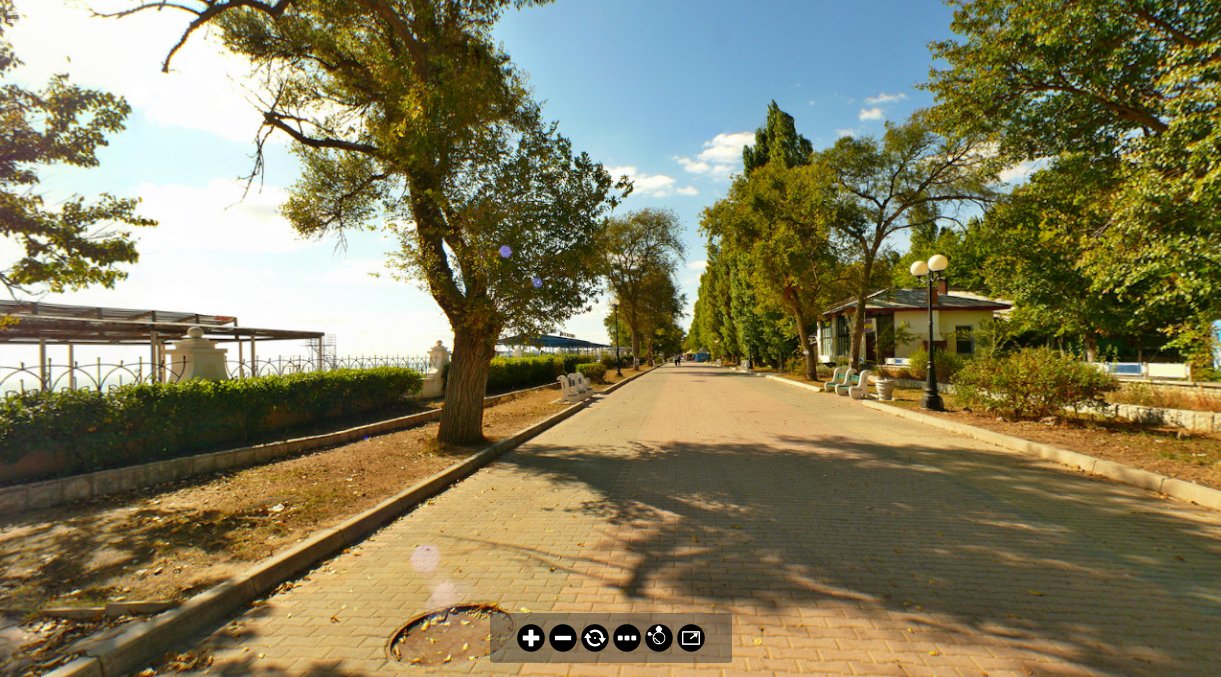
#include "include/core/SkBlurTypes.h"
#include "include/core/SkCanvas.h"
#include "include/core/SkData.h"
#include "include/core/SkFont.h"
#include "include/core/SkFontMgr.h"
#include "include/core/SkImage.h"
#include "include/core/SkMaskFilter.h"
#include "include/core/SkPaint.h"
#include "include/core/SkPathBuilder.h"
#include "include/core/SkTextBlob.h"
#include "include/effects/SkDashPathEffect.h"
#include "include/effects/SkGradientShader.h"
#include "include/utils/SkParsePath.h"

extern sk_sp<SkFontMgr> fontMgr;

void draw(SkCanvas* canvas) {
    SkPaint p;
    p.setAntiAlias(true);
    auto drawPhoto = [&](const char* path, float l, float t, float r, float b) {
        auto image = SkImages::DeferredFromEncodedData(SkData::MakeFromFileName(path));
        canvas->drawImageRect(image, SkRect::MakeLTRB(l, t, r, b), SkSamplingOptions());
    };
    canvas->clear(0xFFFFFFFF);
    drawPhoto("media/1.png", 0, 0, 1221, 677);
    drawPhoto("media/2.png", 7, 11, 34, 31);
    p.setColor(0x803F3F3F);
    canvas->drawRoundRect(SkRect::MakeLTRB(490, 613, 732, 663), 3, 3, p);
    drawPhoto("media/3.png", 517, 624, 545, 652);
    drawPhoto("media/4.png", 549, 624, 577, 652);
    drawPhoto("media/5.png", 581, 624, 609, 652);
    drawPhoto("media/6.png", 613, 624, 641, 652);
    drawPhoto("media/7.png", 645, 624, 673, 652);
    drawPhoto("media/8.png", 677, 624, 705, 652);
}
